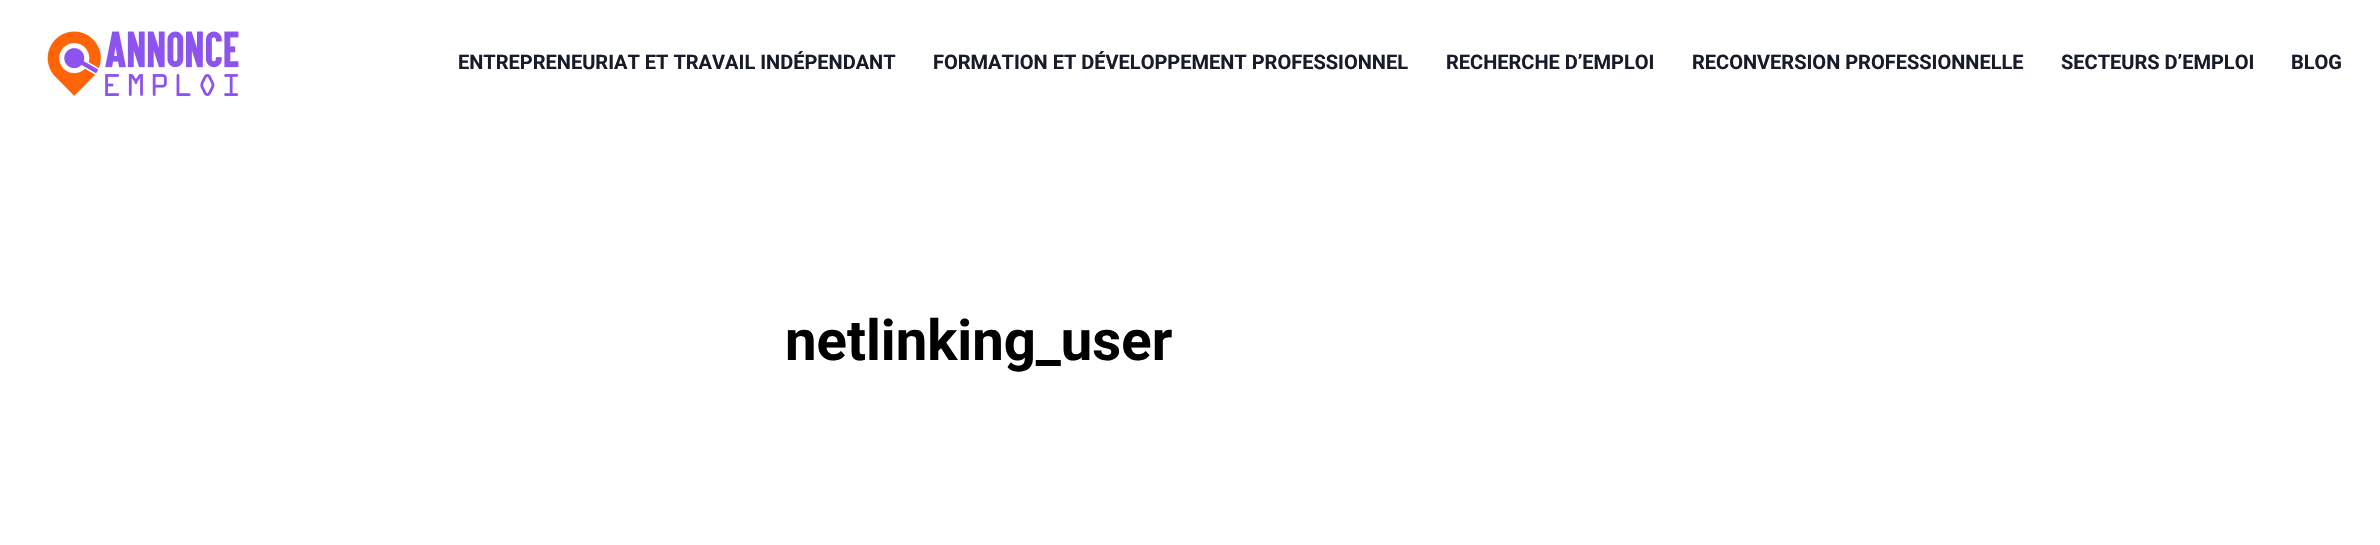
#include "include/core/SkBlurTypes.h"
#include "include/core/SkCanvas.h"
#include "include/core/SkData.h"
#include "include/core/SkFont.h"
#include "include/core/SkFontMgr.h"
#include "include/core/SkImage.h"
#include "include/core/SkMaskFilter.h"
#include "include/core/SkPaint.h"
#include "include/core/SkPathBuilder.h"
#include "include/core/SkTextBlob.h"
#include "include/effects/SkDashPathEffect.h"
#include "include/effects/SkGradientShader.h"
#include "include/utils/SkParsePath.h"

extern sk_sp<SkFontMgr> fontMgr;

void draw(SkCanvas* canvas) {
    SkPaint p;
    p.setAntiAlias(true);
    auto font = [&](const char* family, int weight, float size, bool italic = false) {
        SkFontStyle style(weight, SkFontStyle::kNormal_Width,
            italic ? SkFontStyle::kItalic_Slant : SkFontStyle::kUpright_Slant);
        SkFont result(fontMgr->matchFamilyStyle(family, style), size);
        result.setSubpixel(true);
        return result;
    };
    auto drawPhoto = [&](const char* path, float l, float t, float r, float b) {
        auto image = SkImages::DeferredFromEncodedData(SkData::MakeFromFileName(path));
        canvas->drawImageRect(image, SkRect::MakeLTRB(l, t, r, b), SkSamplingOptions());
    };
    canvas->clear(0xFFFFFFFF);
    drawPhoto("media/1.png", 47, 31, 239, 96);
    auto font1 = font("Roboto", 700, 20);
    p.setColor(0xFF171B2A);
    {
        const struct { const char* s; float x, y; } items[] = {
            {"ENTREPRENEURIAT ET TRAVAIL INDÉPENDANT", 458, 69},
            {"FORMATION ET DÉVELOPPEMENT PROFESSIONNEL", 933, 69},
            {"RECHERCHE D’EMPLOI", 1446, 69},
            {"RECONVERSION PROFESSIONNELLE", 1692, 69},
            {"SECTEURS D’EMPLOI", 2061, 69},
            {"BLOG", 2291, 69},
        };
        for (auto [s, x, y] : items) {
            canvas->drawString(s, x, y, font1, p);
        }
    }
    auto font2 = font("Roboto", 700, 56.25f);
    p.setColor(0xFF000000);
    canvas->drawString("netlinking_user", 785, 360, font2, p);
}
